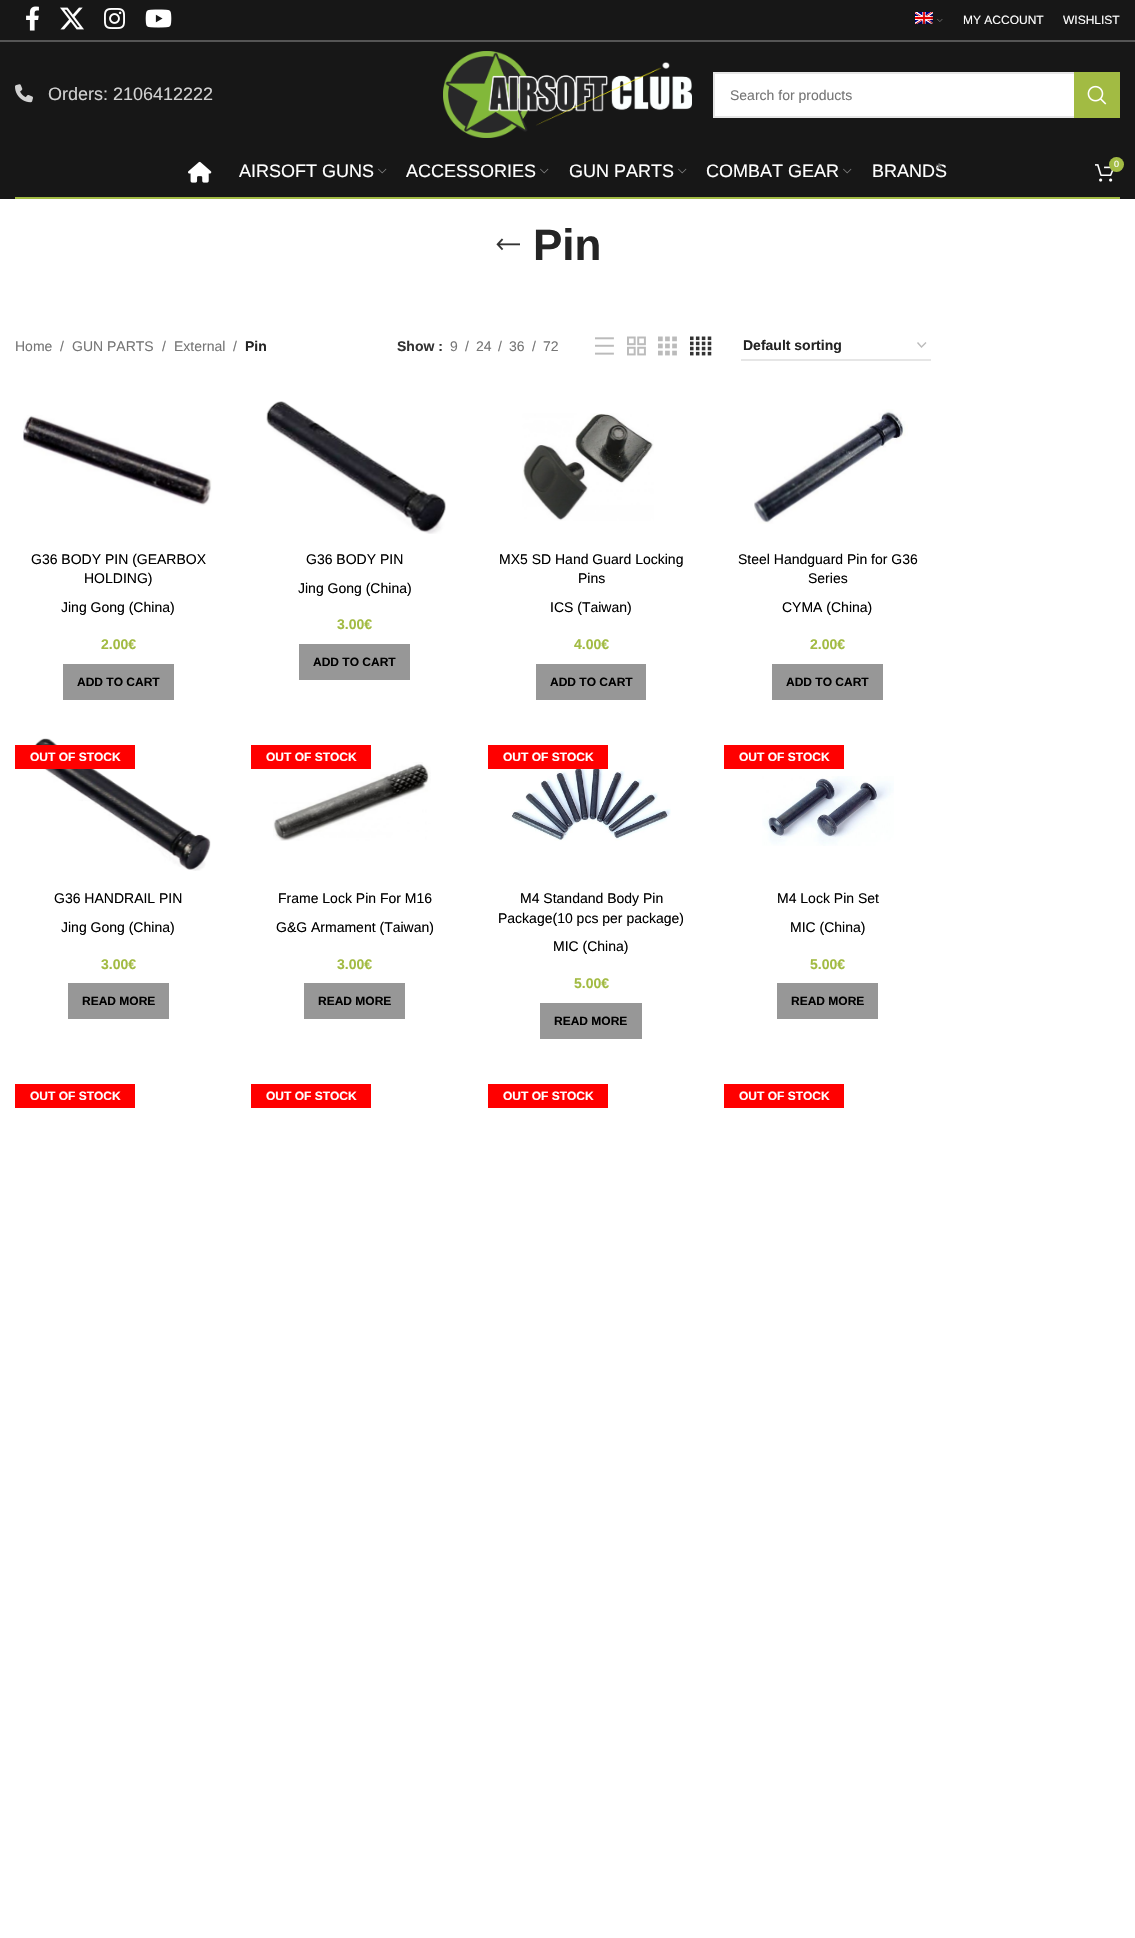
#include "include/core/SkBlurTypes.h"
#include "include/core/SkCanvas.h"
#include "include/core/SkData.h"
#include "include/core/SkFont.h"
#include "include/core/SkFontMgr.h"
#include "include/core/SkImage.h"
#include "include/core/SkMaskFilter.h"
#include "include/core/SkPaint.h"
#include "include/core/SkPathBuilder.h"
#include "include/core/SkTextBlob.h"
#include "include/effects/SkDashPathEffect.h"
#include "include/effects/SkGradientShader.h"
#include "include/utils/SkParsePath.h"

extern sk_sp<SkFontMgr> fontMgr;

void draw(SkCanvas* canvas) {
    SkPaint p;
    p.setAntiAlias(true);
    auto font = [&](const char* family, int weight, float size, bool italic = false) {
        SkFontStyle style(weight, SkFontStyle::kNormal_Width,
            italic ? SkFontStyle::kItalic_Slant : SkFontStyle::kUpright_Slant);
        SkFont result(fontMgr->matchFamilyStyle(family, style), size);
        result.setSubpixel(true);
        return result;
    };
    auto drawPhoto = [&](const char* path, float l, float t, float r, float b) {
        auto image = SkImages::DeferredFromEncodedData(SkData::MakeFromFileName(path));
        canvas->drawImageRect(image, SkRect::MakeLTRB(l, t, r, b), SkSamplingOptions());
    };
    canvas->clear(0xFFFFFFFF);
    p.setColor(0xFF171717);
    canvas->drawRect(SkRect::MakeLTRB(0, 0, 1135, 40), p);
    p.setColor(0xFF555555);
    canvas->drawRect(SkRect::MakeLTRB(0, 40, 1135, 42), p);
    drawPhoto("media/1.png", 26, 6, 39, 31);
    drawPhoto("media/2.png", 60, 7, 84, 30);
    drawPhoto("media/3.png", 104, 8, 125, 29);
    drawPhoto("media/4.png", 145, 9, 172, 28);
    drawPhoto("media/5.png", 915, 12, 933, 24);
    drawPhoto("media/6.png", 937, 19, 943, 22);
    auto font1 = font("Liberation Sans", 400, 12);
    p.setColor(0xFFFFFFFF);
    canvas->drawString("MY ACCOUNT", 963, 24, font1, p);
    canvas->drawString("WISHLIST", 1063, 24, font1, p);
    p.setColor(0xFF171717);
    canvas->drawRect(SkRect::MakeLTRB(0, 42, 1135, 199), p);
    drawPhoto("media/7.png", 15, 84, 33, 103);
    auto font2 = font("Liberation Sans", 400, 18);
    p.setColor(0xFFD1D1D1);
    canvas->drawString("Orders: 2106412222", 48, 100, font2, p);
    drawPhoto("media/8.png", 443, 51, 692, 138);
    p.setColor(0xFFFFFFFF);
    canvas->drawRect(SkRect::MakeLTRB(715, 74, 1074, 116), p);
    p.setStyle(SkPaint::kStroke_Style);
    p.setStrokeWidth(2);
    p.setColor(0xFFE6E6E6);
    canvas->drawRect(SkRect::MakeLTRB(714, 73, 1119, 117), p);
    auto font3 = font("Liberation Sans", 400, 14);
    p.setStyle(SkPaint::kFill_Style);
    p.setColor(0xFF767676);
    canvas->drawString("Search for products", 730, 100, font3, p);
    p.setColor(0xFFA2BB43);
    canvas->drawRect(SkRect::MakeLTRB(1074, 72, 1120, 118), p);
    drawPhoto("media/9.png", 1087, 85, 1107, 105);
    canvas->drawRect(SkRect::MakeLTRB(15, 197, 1120, 199), p);
    drawPhoto("media/10.png", 188, 161, 212, 183);
    p.setColor(0xFFFFFFFF);
    canvas->drawString("AIRSOFT GUNS", 239, 177, font2, p);
    drawPhoto("media/11.png", 378, 168, 387, 174);
    canvas->drawString("ACCESSORIES", 406, 177, font2, p);
    drawPhoto("media/11.png", 540, 168, 549, 174);
    canvas->drawString("GUN PARTS", 569, 177, font2, p);
    drawPhoto("media/11.png", 678, 168, 687, 174);
    canvas->drawString("COMBAT GEAR", 706, 177, font2, p);
    drawPhoto("media/11.png", 843, 168, 852, 174);
    canvas->drawString("BRANDS", 872, 177, font2, p);
    drawPhoto("media/12.png", 1095, 164, 1114, 182);
    p.setColor(0xFFA2BB43);
    canvas->drawCircle(1116.5f, 164.5f, 7.5f, p);
    auto font4 = font("Liberation Sans", 400, 9);
    p.setColor(0xFFFFFFFF);
    canvas->drawString("0", 1114, 167, font4, p);
    auto font5 = font("Liberation Sans", 400, 16);
    p.setColor(0xFF686868);
    canvas->drawString("*", 936, 174, font5, p);
    drawPhoto("media/13.png", 496, 238, 520, 251);
    auto font6 = font("Liberation Sans", 700, 44);
    p.setColor(0xFF242424);
    canvas->drawString("Pin", 533, 260, font6, p);
    p.setColor(0xFF767676);
    {
        const struct { const char* s; float x, y; } items[] = {
            {"Home", 15, 351},
            {"/", 60, 351},
            {"GUN PARTS", 72, 351},
            {"/", 162, 351},
            {"External", 174, 351},
            {"/", 233, 351},
        };
        for (auto [s, x, y] : items) {
            canvas->drawString(s, x, y, font3, p);
        }
    }
    auto font7 = font("Liberation Sans", 700, 14);
    p.setColor(0xFF242424);
    canvas->drawString("Pin", 245, 351, font7, p);
    p.setColor(0xFF333333);
    canvas->drawString("Show :", 397, 351, font7, p);
    p.setColor(0xFF767676);
    {
        const struct { const char* s; float x, y; } items[] = {
            {"9", 450, 351},
            {"/", 465, 351},
            {"24", 476, 351},
            {"/", 498, 351},
            {"36", 509, 351},
            {"/", 532, 351},
            {"72", 543, 351},
        };
        for (auto [s, x, y] : items) {
            canvas->drawString(s, x, y, font3, p);
        }
    }
    drawPhoto("media/14.png", 595, 337, 614, 355);
    drawPhoto("media/15.png", 627, 336, 646, 356);
    drawPhoto("media/16.png", 658, 336, 677, 356);
    drawPhoto("media/17.png", 690, 336, 712, 356);
    p.setStyle(SkPaint::kStroke_Style);
    p.setStrokeWidth(1.4f);
    p.setColor(0xFFBBBBBB);
    canvas->drawPath(SkPathBuilder().moveTo(917.5f, 342.5f).lineTo(921.5f, 347).lineTo(926, 342.5f).detach(), p);
    p.setStyle(SkPaint::kFill_Style);
    p.setColor(0xFFE6E6E6);
    canvas->drawRect(SkRect::MakeLTRB(741, 359, 931, 361), p);
    p.setColor(0xFF242424);
    canvas->drawString("Default sorting", 743, 350, font7, p);
    drawPhoto("media/18.png", 23, 415, 212, 506);
    p.setColor(0xFF000000);
    {
        const struct { const char* s; float x, y; } items[] = {
            {"G36 BODY PIN (GEARBOX", 31, 564},
            {"HOLDING)", 84, 583},
            {"Jing Gong (China)", 61, 612},
        };
        for (auto [s, x, y] : items) {
            canvas->drawString(s, x, y, font3, p);
        }
    }
    p.setColor(0xFFA2BB43);
    canvas->drawString("2.00€", 101, 649, font7, p);
    p.setColor(0xFF979797);
    canvas->drawRect(SkRect::MakeLTRB(63, 664, 174, 700), p);
    auto font8 = font("Liberation Sans", 700, 12);
    p.setColor(0xFF000000);
    canvas->drawString("ADD TO CART", 77, 686, font8, p);
    drawPhoto("media/19.png", 266, 401, 446, 534);
    canvas->drawString("G36 BODY PIN", 306, 564, font3, p);
    canvas->drawString("Jing Gong (China)", 298, 593, font3, p);
    p.setColor(0xFFA2BB43);
    canvas->drawString("3.00€", 337, 629, font7, p);
    p.setColor(0xFF979797);
    canvas->drawRect(SkRect::MakeLTRB(299, 644, 410, 680), p);
    p.setColor(0xFF000000);
    canvas->drawString("ADD TO CART", 313, 666, font8, p);
    drawPhoto("media/20.png", 522, 413, 654, 521);
    {
        const struct { const char* s; float x, y; } items[] = {
            {"MX5 SD Hand Guard Locking", 499, 564},
            {"Pins", 578, 583},
            {"ICS (Taiwan)", 550, 612},
        };
        for (auto [s, x, y] : items) {
            canvas->drawString(s, x, y, font3, p);
        }
    }
    p.setColor(0xFFA2BB43);
    canvas->drawString("4.00€", 574, 649, font7, p);
    p.setColor(0xFF979797);
    canvas->drawRect(SkRect::MakeLTRB(536, 664, 646, 700), p);
    p.setColor(0xFF000000);
    canvas->drawString("ADD TO CART", 550, 686, font8, p);
    drawPhoto("media/21.png", 754, 409, 908, 524);
    {
        const struct { const char* s; float x, y; } items[] = {
            {"Steel Handguard Pin for G36", 738, 564},
            {"Series", 808, 583},
            {"CYMA (China)", 782, 612},
        };
        for (auto [s, x, y] : items) {
            canvas->drawString(s, x, y, font3, p);
        }
    }
    p.setColor(0xFFA2BB43);
    canvas->drawString("2.00€", 810, 649, font7, p);
    p.setColor(0xFF979797);
    canvas->drawRect(SkRect::MakeLTRB(772, 664, 883, 700), p);
    p.setColor(0xFF000000);
    canvas->drawString("ADD TO CART", 786, 686, font8, p);
    drawPhoto("media/22.png", 30, 738, 211, 871);
    p.setColor(0xFFFF0000);
    canvas->drawRect(SkRect::MakeLTRB(15, 745, 135, 769), p);
    p.setColor(0xFFFFFFFF);
    canvas->drawString("OUT OF STOCK", 30, 761, font8, p);
    p.setColor(0xFF000000);
    canvas->drawString("G36 HANDRAIL PIN", 54, 903, font3, p);
    canvas->drawString("Jing Gong (China)", 61, 932, font3, p);
    p.setColor(0xFFA2BB43);
    canvas->drawString("3.00€", 101, 969, font7, p);
    p.setColor(0xFF979797);
    canvas->drawRect(SkRect::MakeLTRB(68, 983, 169, 1019), p);
    p.setColor(0xFF000000);
    canvas->drawString("READ MORE", 82, 1005, font8, p);
    drawPhoto("media/23.png", 273, 762, 431, 841);
    p.setColor(0xFFFF0000);
    canvas->drawRect(SkRect::MakeLTRB(251, 745, 371, 769), p);
    p.setColor(0xFFFFFFFF);
    canvas->drawString("OUT OF STOCK", 266, 761, font8, p);
    p.setColor(0xFF000000);
    canvas->drawString("Frame Lock Pin For M16", 278, 903, font3, p);
    canvas->drawString("G&G Armament (Taiwan)", 276, 932, font3, p);
    p.setColor(0xFFA2BB43);
    canvas->drawString("3.00€", 337, 969, font7, p);
    p.setColor(0xFF979797);
    canvas->drawRect(SkRect::MakeLTRB(304, 983, 405, 1019), p);
    p.setColor(0xFF000000);
    canvas->drawString("READ MORE", 318, 1005, font8, p);
    drawPhoto("media/24.png", 511, 766, 671, 841);
    p.setColor(0xFFFF0000);
    canvas->drawRect(SkRect::MakeLTRB(488, 745, 608, 769), p);
    p.setColor(0xFFFFFFFF);
    canvas->drawString("OUT OF STOCK", 503, 761, font8, p);
    p.setColor(0xFF000000);
    {
        const struct { const char* s; float x, y; } items[] = {
            {"M4 Standand Body Pin", 520, 903},
            {"Package(10 pcs per package)", 498, 923},
            {"MIC (China)", 553, 951},
        };
        for (auto [s, x, y] : items) {
            canvas->drawString(s, x, y, font3, p);
        }
    }
    p.setColor(0xFFA2BB43);
    canvas->drawString("5.00€", 574, 988, font7, p);
    p.setColor(0xFF979797);
    canvas->drawRect(SkRect::MakeLTRB(540, 1003, 642, 1039), p);
    p.setColor(0xFF000000);
    canvas->drawString("READ MORE", 554, 1025, font8, p);
    p.setColor(0xFFFF0000);
    canvas->drawRect(SkRect::MakeLTRB(724, 745, 844, 769), p);
    p.setColor(0xFFFFFFFF);
    canvas->drawString("OUT OF STOCK", 739, 761, font8, p);
    drawPhoto("media/25.png", 762, 776, 894, 846);
    p.setColor(0xFF000000);
    canvas->drawString("M4 Lock Pin Set", 777, 903, font3, p);
    canvas->drawString("MIC (China)", 790, 932, font3, p);
    p.setColor(0xFFA2BB43);
    canvas->drawString("5.00€", 810, 969, font7, p);
    p.setColor(0xFF979797);
    canvas->drawRect(SkRect::MakeLTRB(777, 983, 878, 1019), p);
    p.setColor(0xFF000000);
    canvas->drawString("READ MORE", 791, 1005, font8, p);
    p.setColor(0xFFFF0000);
    canvas->drawRect(SkRect::MakeLTRB(15, 1084, 135, 1108), p);
    p.setColor(0xFFFFFFFF);
    canvas->drawString("OUT OF STOCK", 30, 1100, font8, p);
    p.setColor(0xFFFF0000);
    canvas->drawRect(SkRect::MakeLTRB(251, 1084, 371, 1108), p);
    p.setColor(0xFFFFFFFF);
    canvas->drawString("OUT OF STOCK", 266, 1100, font8, p);
    p.setColor(0xFFFF0000);
    canvas->drawRect(SkRect::MakeLTRB(488, 1084, 608, 1108), p);
    p.setColor(0xFFFFFFFF);
    canvas->drawString("OUT OF STOCK", 503, 1100, font8, p);
    p.setColor(0xFFFF0000);
    canvas->drawRect(SkRect::MakeLTRB(724, 1084, 844, 1108), p);
    p.setColor(0xFFFFFFFF);
    canvas->drawString("OUT OF STOCK", 739, 1100, font8, p);
}
